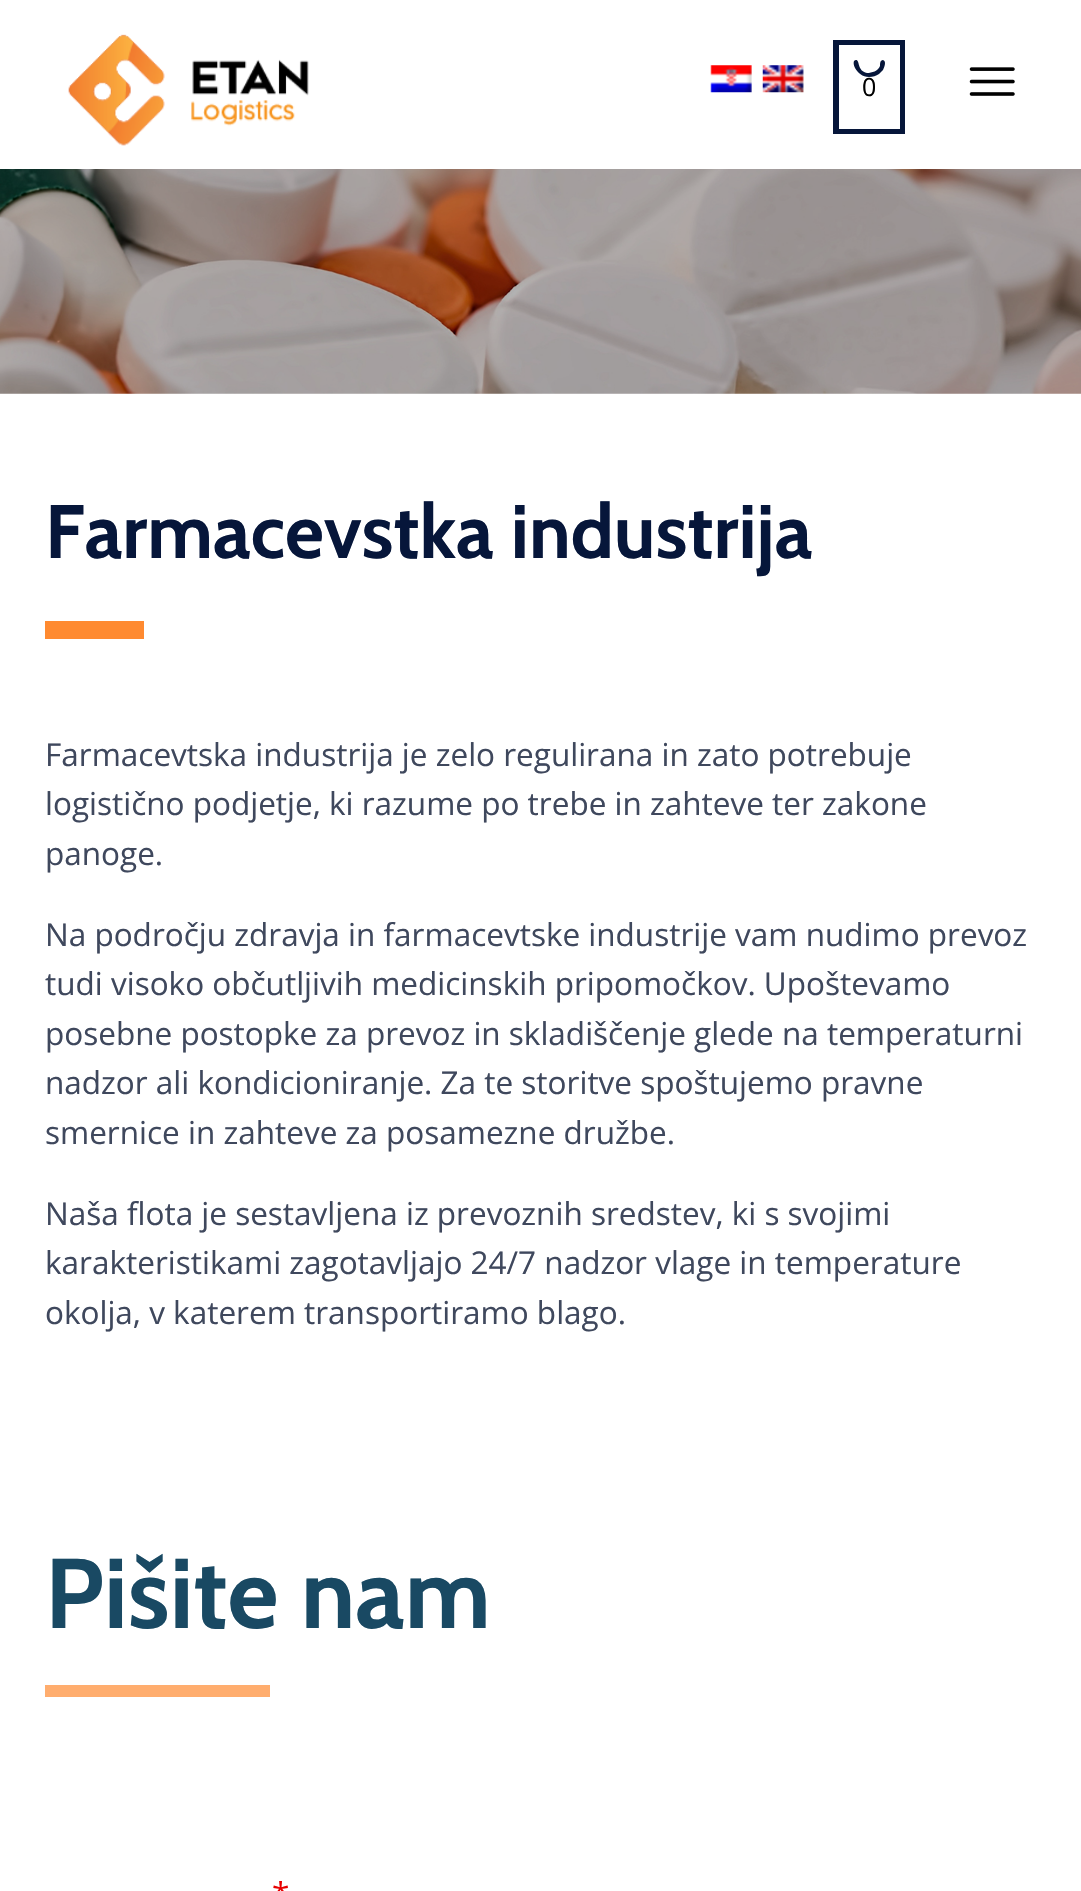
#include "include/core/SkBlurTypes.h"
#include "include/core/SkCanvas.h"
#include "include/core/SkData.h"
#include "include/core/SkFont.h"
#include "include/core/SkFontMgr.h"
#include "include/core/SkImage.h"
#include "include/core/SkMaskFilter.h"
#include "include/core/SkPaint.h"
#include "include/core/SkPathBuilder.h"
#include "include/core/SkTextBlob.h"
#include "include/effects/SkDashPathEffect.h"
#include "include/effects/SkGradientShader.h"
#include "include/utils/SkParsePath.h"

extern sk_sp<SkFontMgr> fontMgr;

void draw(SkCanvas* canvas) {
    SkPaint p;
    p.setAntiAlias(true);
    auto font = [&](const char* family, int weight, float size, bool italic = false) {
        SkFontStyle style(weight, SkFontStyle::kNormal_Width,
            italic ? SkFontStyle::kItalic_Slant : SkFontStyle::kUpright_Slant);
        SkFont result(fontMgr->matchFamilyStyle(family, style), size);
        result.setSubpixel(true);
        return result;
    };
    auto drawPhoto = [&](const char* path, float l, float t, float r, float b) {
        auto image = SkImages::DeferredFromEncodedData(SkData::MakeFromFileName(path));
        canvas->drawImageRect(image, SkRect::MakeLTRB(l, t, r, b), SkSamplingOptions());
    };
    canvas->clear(0xFFFFFFFF);
    drawPhoto("media/1.png", 68, 34, 309, 146);
    drawPhoto("media/2.png", 710, 65, 752, 93);
    drawPhoto("media/3.png", 762, 65, 804, 93);
    p.setColor(0xFF06163A);
    canvas->drawPath(SkPathBuilder().moveTo(833, 40).lineTo(833, 134).lineTo(905, 134).lineTo(905, 40).close().moveTo(900, 129).lineTo(839, 129).lineTo(839, 45).lineTo(900, 45).close().moveTo(869, 77).cubicTo(873, 77, 876, 76, 879, 74).lineTo(883, 70).cubicTo(884, 68, 887, 61, 883, 60).cubicTo(880, 60, 880, 64, 880, 66).cubicTo(878, 71, 872, 73, 867, 73).cubicTo(857, 71, 860, 60, 856, 60).cubicTo(850, 60, 856, 77, 869, 77).close().detach(), p);
    auto font1 = font("Open Sans", 400, 25);
    p.setColor(0xFF000000);
    canvas->drawString("0", 862, 96, font1, p);
    drawPhoto("media/4.png", 969, 67, 1015, 96);
    drawPhoto("media/5.png", 0, 169, 1081, 394);
    auto font2 = font("Cabin", 700, 75.6f);
    p.setColor(0xFF06163A);
    canvas->drawString("Farmacevstka industrija", 45, 558, font2, p);
    p.setColor(0xFFFF8A30);
    canvas->drawRect(SkRect::MakeLTRB(45, 621, 144, 639), p);
    auto font3 = font("Open Sans", 400, 31.5f);
    p.setColor(0xFF3F485D);
    {
        const struct { const char* s; float x, y; } items[] = {
            {"Farmacevtska industrija je zelo regulirana in zato potrebuje", 45, 766},
            {"logistično podjetje, ki razume po trebe in zahteve ter zakone", 45, 815},
            {"panoge.", 45, 865},
            {"Na področju zdravja in farmacevtske industrije vam nudimo prevoz", 45, 946},
            {"tudi visoko občutljivih medicinskih pripomočkov. Upoštevamo", 45, 995},
            {"posebne postopke za prevoz in skladiščenje glede na temperaturni", 45, 1045},
            {"nadzor ali kondicioniranje. Za te storitve spoštujemo pravne", 45, 1094},
            {"smernice in zahteve za posamezne družbe.", 45, 1144},
            {"Naša flota je sestavljena iz prevoznih sredstev, ki s svojimi", 45, 1225},
            {"karakteristikami zagotavljajo 24/7 nadzor vlage in temperature", 45, 1274},
            {"okolja, v katerem transportiramo blago.", 45, 1324},
        };
        for (auto [s, x, y] : items) {
            canvas->drawString(s, x, y, font3, p);
        }
    }
    auto font4 = font("Cabin", 700, 99);
    p.setColor(0xFF194963);
    canvas->drawString("Pišite nam", 45, 1628, font4, p);
    p.setColor(0xFFFFAD6E);
    canvas->drawRect(SkRect::MakeLTRB(45, 1685, 270, 1697), p);
    p.setColor(0xFFE80000);
    canvas->drawString("*", 272, 1905, font3, p);
}
